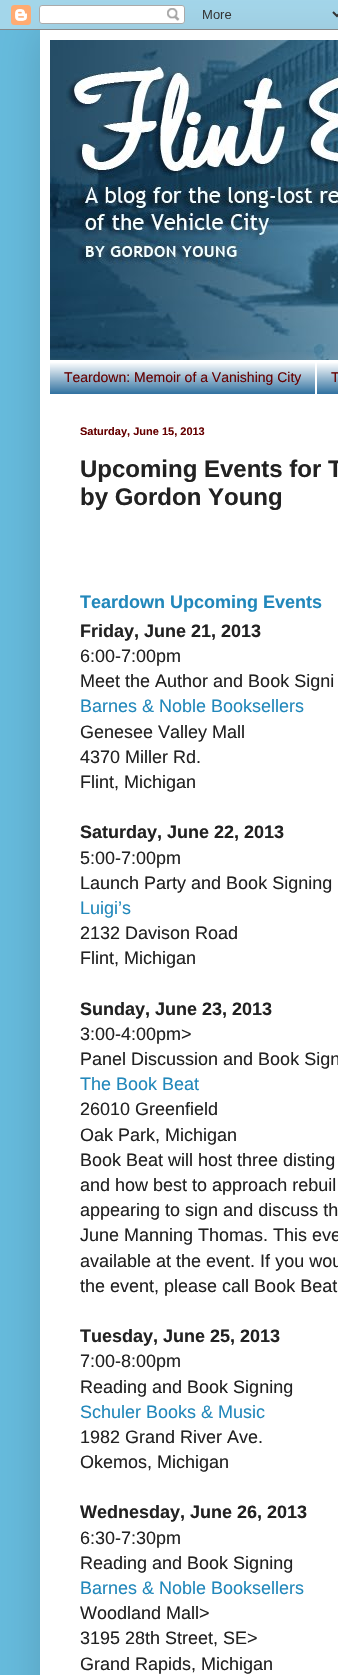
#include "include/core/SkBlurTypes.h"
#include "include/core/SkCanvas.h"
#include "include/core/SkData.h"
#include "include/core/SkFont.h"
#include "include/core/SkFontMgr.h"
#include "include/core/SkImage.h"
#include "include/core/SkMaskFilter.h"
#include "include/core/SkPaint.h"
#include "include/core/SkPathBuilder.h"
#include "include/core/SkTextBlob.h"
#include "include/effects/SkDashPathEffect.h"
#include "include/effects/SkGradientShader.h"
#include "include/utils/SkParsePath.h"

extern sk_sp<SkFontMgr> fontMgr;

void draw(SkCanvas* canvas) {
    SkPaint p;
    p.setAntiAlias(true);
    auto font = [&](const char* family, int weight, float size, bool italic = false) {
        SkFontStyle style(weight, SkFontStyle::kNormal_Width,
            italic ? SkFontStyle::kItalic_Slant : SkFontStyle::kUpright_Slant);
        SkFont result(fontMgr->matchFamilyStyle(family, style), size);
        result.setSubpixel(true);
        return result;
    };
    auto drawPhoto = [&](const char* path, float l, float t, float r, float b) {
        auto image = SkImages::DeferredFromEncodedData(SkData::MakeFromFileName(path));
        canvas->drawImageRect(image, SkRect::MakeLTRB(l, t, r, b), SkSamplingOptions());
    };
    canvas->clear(0xFF66BBDD);
    p.setColor(0x26000000);
    p.setMaskFilter(SkMaskFilter::MakeBlur(kNormal_SkBlurStyle, 20));
    canvas->drawRect(SkRect::MakeLTRB(40, 30, 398, 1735), p);
    p.setMaskFilter(nullptr);
    drawPhoto("media/1.png", 0, 0, 338, 30);
    p.setColor(0xFFFFFFFF);
    canvas->drawRect(SkRect::MakeLTRB(40, 30, 338, 1675), p);
    drawPhoto("media/2.png", 50, 40, 338, 360);
    p.setColor(0xFF09568E);
    canvas->drawRect(SkRect::MakeLTRB(50, 362, 338, 394), p);
    drawPhoto("media/3.png", 50, 361, 338, 394);
    p.setColor(0xFFFFFFFF);
    canvas->drawRect(SkRect::MakeLTRB(315, 361, 317, 394), p);
    auto font1 = font("Liberation Sans", 400, 14);
    p.setColor(0xFF660000);
    canvas->drawString("Teardown: Memoir of a Vanishing City", 64, 382, font1, p);
    canvas->drawString("T", 331, 382, font1, p);
    auto font2 = font("Liberation Sans", 700, 11);
    canvas->drawString("Saturday, June 15, 2013", 80, 435, font2, p);
    auto font3 = font("Liberation Sans", 700, 24);
    p.setColor(0xFF222222);
    canvas->drawString("Upcoming Events for T", 80, 477, font3, p);
    canvas->drawString("by Gordon Young", 80, 505, font3, p);
    auto font4 = font("Liberation Sans", 700, 18);
    p.setColor(0xFF2288BB);
    canvas->drawString("Teardown Upcoming Events", 80, 608, font4, p);
    p.setColor(0xFF222222);
    canvas->drawString("Friday, June 21, 2013", 80, 637, font4, p);
    auto font5 = font("Liberation Sans", 400, 18);
    canvas->drawString("6:00-7:00pm", 80, 662, font5, p);
    canvas->drawString("Meet the Author and Book Signi", 80, 687, font5, p);
    p.setColor(0xFF2288BB);
    canvas->drawString("Barnes & Noble Booksellers", 80, 712, font5, p);
    p.setColor(0xFF222222);
    {
        const struct { const char* s; float x, y; } items[] = {
            {"Genesee Valley Mall", 80, 738},
            {"4370 Miller Rd.", 80, 763},
            {"Flint, Michigan", 80, 788},
        };
        for (auto [s, x, y] : items) {
            canvas->drawString(s, x, y, font5, p);
        }
    }
    canvas->drawString("Saturday, June 22, 2013", 80, 838, font4, p);
    canvas->drawString("5:00-7:00pm", 80, 864, font5, p);
    canvas->drawString("Launch Party and Book Signing", 80, 889, font5, p);
    p.setColor(0xFF2288BB);
    canvas->drawString("Luigi’s", 80, 914, font5, p);
    p.setColor(0xFF222222);
    canvas->drawString("2132 Davison Road", 80, 939, font5, p);
    canvas->drawString("Flint, Michigan", 80, 964, font5, p);
    canvas->drawString("Sunday, June 23, 2013", 80, 1015, font4, p);
    canvas->drawString("3:00-4:00pm>", 80, 1040, font5, p);
    canvas->drawString("Panel Discussion and Book Sign", 80, 1065, font5, p);
    p.setColor(0xFF2288BB);
    canvas->drawString("The Book Beat", 80, 1090, font5, p);
    p.setColor(0xFF222222);
    {
        const struct { const char* s; float x, y; } items[] = {
            {"26010 Greenfield", 80, 1115},
            {"Oak Park, Michigan", 80, 1141},
            {"Book Beat will host three disting", 80, 1166},
            {"and how best to approach rebuil", 80, 1191},
            {"appearing to sign and discuss th", 80, 1216},
            {"June Manning Thomas. This eve", 80, 1241},
            {"available at the event. If you wou", 80, 1267},
            {"the event, please call Book Beat", 80, 1292},
        };
        for (auto [s, x, y] : items) {
            canvas->drawString(s, x, y, font5, p);
        }
    }
    canvas->drawString("Tuesday, June 25, 2013", 80, 1342, font4, p);
    canvas->drawString("7:00-8:00pm", 80, 1367, font5, p);
    canvas->drawString("Reading and Book Signing", 80, 1393, font5, p);
    p.setColor(0xFF2288BB);
    canvas->drawString("Schuler Books & Music", 80, 1418, font5, p);
    p.setColor(0xFF222222);
    canvas->drawString("1982 Grand River Ave.", 80, 1443, font5, p);
    canvas->drawString("Okemos, Michigan", 80, 1468, font5, p);
    canvas->drawString("Wednesday, June 26, 2013", 80, 1518, font4, p);
    canvas->drawString("6:30-7:30pm", 80, 1544, font5, p);
    canvas->drawString("Reading and Book Signing", 80, 1569, font5, p);
    p.setColor(0xFF2288BB);
    canvas->drawString("Barnes & Noble Booksellers", 80, 1594, font5, p);
    p.setColor(0xFF222222);
    {
        const struct { const char* s; float x, y; } items[] = {
            {"Woodland Mall>", 80, 1619},
            {"3195 28th Street, SE>", 80, 1644},
            {"Grand Rapids, Michigan", 80, 1670},
        };
        for (auto [s, x, y] : items) {
            canvas->drawString(s, x, y, font5, p);
        }
    }
}
